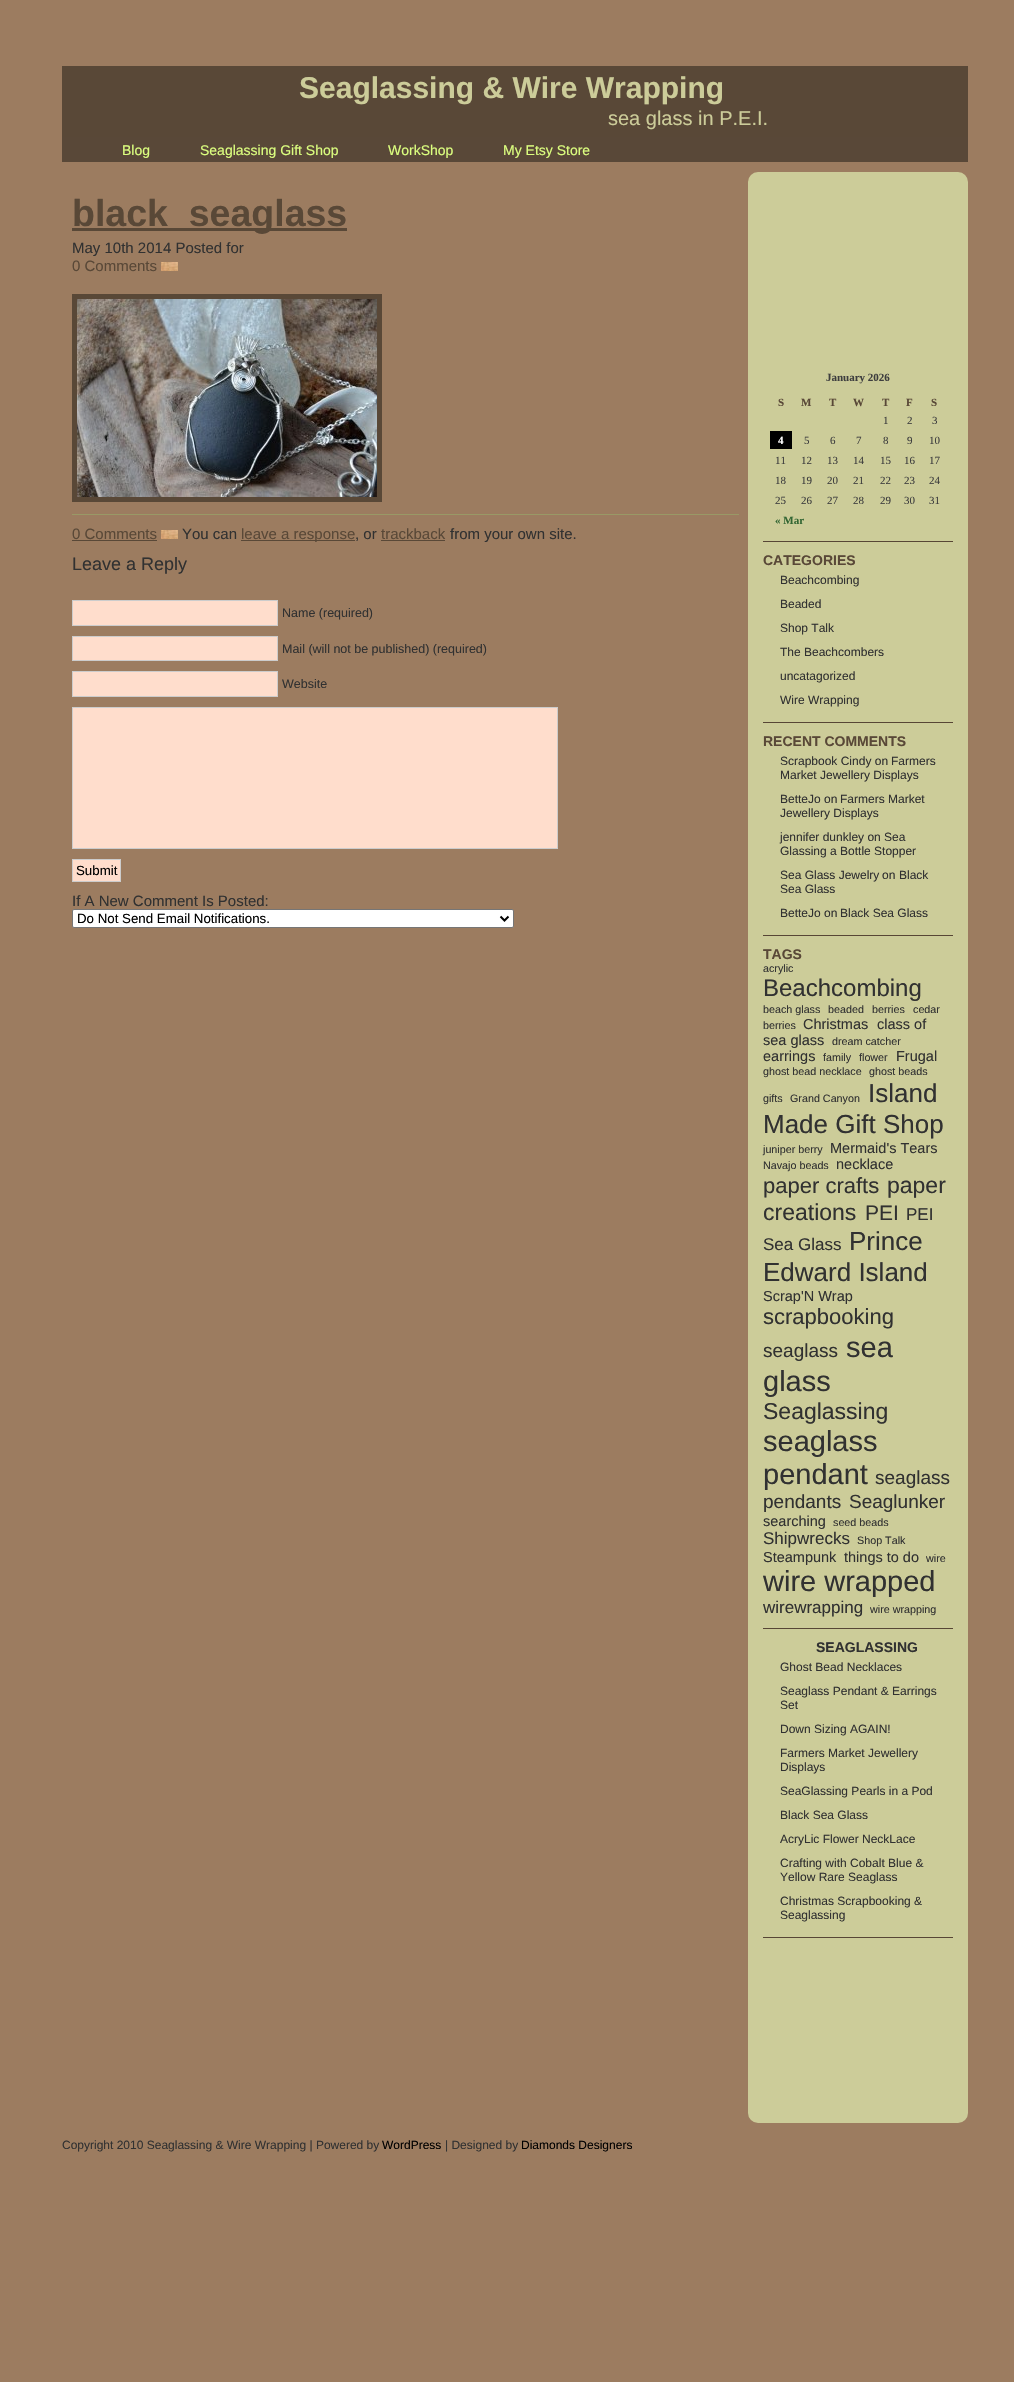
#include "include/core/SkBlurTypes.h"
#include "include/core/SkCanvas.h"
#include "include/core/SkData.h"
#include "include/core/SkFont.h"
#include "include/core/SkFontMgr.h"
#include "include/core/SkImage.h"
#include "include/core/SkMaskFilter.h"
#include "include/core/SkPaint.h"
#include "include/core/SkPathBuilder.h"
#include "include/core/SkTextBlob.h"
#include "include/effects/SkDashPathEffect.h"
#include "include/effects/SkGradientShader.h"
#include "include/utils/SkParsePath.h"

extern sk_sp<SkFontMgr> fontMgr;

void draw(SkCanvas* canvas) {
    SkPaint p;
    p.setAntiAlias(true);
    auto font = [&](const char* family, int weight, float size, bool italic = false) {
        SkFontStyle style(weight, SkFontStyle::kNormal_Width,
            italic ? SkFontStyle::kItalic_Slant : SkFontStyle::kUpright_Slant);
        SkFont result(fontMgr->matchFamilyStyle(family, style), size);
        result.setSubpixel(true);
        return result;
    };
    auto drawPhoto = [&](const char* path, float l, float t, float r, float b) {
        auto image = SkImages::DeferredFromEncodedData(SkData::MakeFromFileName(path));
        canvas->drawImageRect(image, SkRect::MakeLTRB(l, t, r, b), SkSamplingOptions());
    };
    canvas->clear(0xFF9C7C60);
    p.setColor(0xFF594837);
    canvas->drawRect(SkRect::MakeLTRB(62, 66, 968, 137), p);
    auto font1 = font("Liberation Sans", 700, 30);
    p.setColor(0xFFCCCC99);
    canvas->drawString("Seaglassing & Wire Wrapping", 299, 98, font1, p);
    auto font2 = font("Liberation Sans", 400, 20);
    canvas->drawString("sea glass in P.E.I.", 608, 125, font2, p);
    p.setColor(0xFF594838);
    canvas->drawRect(SkRect::MakeLTRB(62, 137, 968, 162), p);
    auto font3 = font("Liberation Sans", 400, 14);
    p.setColor(0xFFDCFF7F);
    {
        const struct { const char* s; float x, y; } items[] = {
            {"Blog", 122, 155},
            {"Seaglassing Gift Shop", 200, 155},
            {"WorkShop", 388, 155},
            {"My Etsy Store", 503, 155},
        };
        for (auto [s, x, y] : items) {
            canvas->drawString(s, x, y, font3, p);
        }
    }
    p.setColor(0xFF594837);
    canvas->drawRect(SkRect::MakeLTRB(72, 228, 347, 231), p);
    auto font4 = font("Liberation Sans", 700, 37.5f);
    canvas->drawString("black_seaglass", 72, 226, font4, p);
    auto font5 = font("Liberation Sans", 400, 15);
    p.setColor(0xFF313131);
    canvas->drawString("May 10th 2014 Posted for", 72, 253, font5, p);
    p.setColor(0xFF594837);
    canvas->drawString("0 Comments", 72, 271, font5, p);
    drawPhoto("media/1.png", 161, 262, 178, 271);
    p.setColor(0xFF999966);
    canvas->drawRect(SkRect::MakeLTRB(72, 514, 739, 515), p);
    p.setStyle(SkPaint::kStroke_Style);
    p.setStrokeWidth(5);
    p.setColor(0xFF594837);
    canvas->drawRect(SkRect::MakeLTRB(74.5f, 296.5f, 379.5f, 499.5f), p);
    drawPhoto("media/2.png", 77, 299, 377, 497);
    p.setStyle(SkPaint::kFill_Style);
    canvas->drawString("0 Comments", 72, 539, font5, p);
    canvas->drawRect(SkRect::MakeLTRB(72, 540, 157, 541), p);
    drawPhoto("media/1.png", 161, 530, 178, 539);
    p.setColor(0xFF313131);
    canvas->drawString("You can", 182, 539, font5, p);
    p.setColor(0xFF594837);
    canvas->drawRect(SkRect::MakeLTRB(241, 540, 355, 541), p);
    canvas->drawString("leave a response", 241, 539, font5, p);
    p.setColor(0xFF313131);
    canvas->drawString(", or", 355, 539, font5, p);
    p.setColor(0xFF594837);
    canvas->drawString("trackback", 381, 539, font5, p);
    canvas->drawRect(SkRect::MakeLTRB(381, 540, 445, 541), p);
    p.setColor(0xFF313131);
    canvas->drawString("from your own site.", 450, 539, font5, p);
    auto font6 = font("Liberation Sans", 400, 18);
    canvas->drawString("Leave a Reply", 72, 570, font6, p);
    p.setColor(0xFFFFDDCC);
    canvas->drawRect(SkRect::MakeLTRB(72.5f, 600.5f, 277.5f, 625.5f), p);
    p.setStyle(SkPaint::kStroke_Style);
    p.setStrokeWidth(1);
    p.setColor(0xFFCCCCCC);
    canvas->drawRect(SkRect::MakeLTRB(72.5f, 600.5f, 277.5f, 625.5f), p);
    auto font7 = font("Liberation Sans", 400, 12.5f);
    p.setStyle(SkPaint::kFill_Style);
    p.setColor(0xFF313131);
    canvas->drawString("Name (required)", 282, 617, font7, p);
    p.setColor(0xFFFFDDCC);
    canvas->drawRect(SkRect::MakeLTRB(72.5f, 636.5f, 277.5f, 660.5f), p);
    p.setStyle(SkPaint::kStroke_Style);
    p.setColor(0xFFCCCCCC);
    canvas->drawRect(SkRect::MakeLTRB(72.5f, 636.5f, 277.5f, 660.5f), p);
    p.setStyle(SkPaint::kFill_Style);
    p.setColor(0xFF313131);
    canvas->drawString("Mail (will not be published) (required)", 282, 653, font7, p);
    p.setColor(0xFFFFDDCC);
    canvas->drawRect(SkRect::MakeLTRB(72.5f, 671.5f, 277.5f, 696.5f), p);
    p.setStyle(SkPaint::kStroke_Style);
    p.setColor(0xFFCCCCCC);
    canvas->drawRect(SkRect::MakeLTRB(72.5f, 671.5f, 277.5f, 696.5f), p);
    p.setStyle(SkPaint::kFill_Style);
    p.setColor(0xFF313131);
    canvas->drawString("Website", 282, 688, font7, p);
    p.setColor(0xFFFFDDCC);
    canvas->drawRect(SkRect::MakeLTRB(72.5f, 707.5f, 557.5f, 848.5f), p);
    p.setStyle(SkPaint::kStroke_Style);
    p.setColor(0xFFCCCCCC);
    canvas->drawRect(SkRect::MakeLTRB(72.5f, 707.5f, 557.5f, 848.5f), p);
    p.setStyle(SkPaint::kFill_Style);
    p.setColor(0xFFFFDDCC);
    canvas->drawRect(SkRect::MakeLTRB(72.5f, 859.5f, 120.5f, 881.5f), p);
    p.setStyle(SkPaint::kStroke_Style);
    p.setColor(0xFFCCCCCC);
    canvas->drawRect(SkRect::MakeLTRB(72.5f, 859.5f, 120.5f, 881.5f), p);
    auto font8 = font("Liberation Sans", 400, 13.3f);
    p.setStyle(SkPaint::kFill_Style);
    p.setColor(0xFF000000);
    canvas->drawString("Submit", 76, 875, font8, p);
    p.setColor(0xFF313131);
    canvas->drawString("If A New Comment Is Posted:", 72, 906, font5, p);
    p.setColor(0xFFFFFFFF);
    canvas->drawRoundRect(SkRect::MakeLTRB(72.5f, 909.5f, 513.5f, 927.5f), 1.5f, 1.5f, p);
    p.setStyle(SkPaint::kStroke_Style);
    p.setColor(0xFF767676);
    canvas->drawRoundRect(SkRect::MakeLTRB(72.5f, 909.5f, 513.5f, 927.5f), 1.5f, 1.5f, p);
    p.setStrokeWidth(2);
    p.setColor(0xFF000000);
    canvas->drawPath(SkPathBuilder().moveTo(500.5f, 916.5f).lineTo(504.5f, 920.5f).lineTo(508.5f, 916.5f).detach(), p);
    p.setStyle(SkPaint::kFill_Style);
    canvas->drawString("Do Not Send Email Notifications.", 77, 923, font8, p);
    p.setColor(0xFFCCCC99);
    canvas->drawRoundRect(SkRect::MakeLTRB(750.5f, 174.5f, 965.5f, 2120.5f), 7.5f, 7.5f, p);
    p.setStyle(SkPaint::kStroke_Style);
    p.setStrokeWidth(5);
    canvas->drawRoundRect(SkRect::MakeLTRB(750.5f, 174.5f, 965.5f, 2120.5f), 7.5f, 7.5f, p);
    p.setStyle(SkPaint::kFill_Style);
    p.setColor(0xFF574635);
    canvas->drawRect(SkRect::MakeLTRB(763, 541, 953, 542), p);
    auto font9 = font("Liberation Serif", 700, 11);
    p.setColor(0xFF3E3E3E);
    canvas->drawString("January 2026", 826, 381, font9, p);
    p.setColor(0xFF594837);
    {
        const struct { const char* s; float x, y; } items[] = {
            {"S", 778, 406},
            {"M", 801, 406},
            {"T", 829, 406},
            {"W", 853, 406},
            {"T", 882, 406},
            {"F", 906, 406},
            {"S", 931, 406},
        };
        for (auto [s, x, y] : items) {
            canvas->drawString(s, x, y, font9, p);
        }
    }
    auto font10 = font("Liberation Serif", 400, 11);
    p.setColor(0xFF3E3E3E);
    {
        const struct { const char* s; float x, y; } items[] = {
            {"1", 883, 424},
            {"2", 907, 424},
            {"3", 932, 424},
        };
        for (auto [s, x, y] : items) {
            canvas->drawString(s, x, y, font10, p);
        }
    }
    p.setColor(0xFF000000);
    canvas->drawRect(SkRect::MakeLTRB(770, 431, 792, 449), p);
    p.setColor(0xFFFFFFFF);
    canvas->drawString("4", 778, 444, font9, p);
    p.setColor(0xFF3E3E3E);
    {
        const struct { const char* s; float x, y; } items[] = {
            {"5", 804, 444},
            {"6", 830, 444},
            {"7", 856, 444},
            {"8", 883, 444},
            {"9", 907, 444},
            {"10", 929, 444},
            {"11", 775, 464},
            {"12", 801, 464},
            {"13", 827, 464},
            {"14", 853, 464},
            {"15", 880, 464},
            {"16", 904, 464},
            {"17", 929, 464},
            {"18", 775, 484},
            {"19", 801, 484},
            {"20", 827, 484},
            {"21", 853, 484},
            {"22", 880, 484},
            {"23", 904, 484},
            {"24", 929, 484},
            {"25", 775, 504},
            {"26", 801, 504},
            {"27", 827, 504},
            {"28", 853, 504},
            {"29", 880, 504},
            {"30", 904, 504},
            {"31", 929, 504},
        };
        for (auto [s, x, y] : items) {
            canvas->drawString(s, x, y, font10, p);
        }
    }
    p.setColor(0xFF336633);
    canvas->drawString("« Mar", 775, 524, font9, p);
    p.setColor(0xFF574635);
    canvas->drawRect(SkRect::MakeLTRB(763, 722, 953, 723), p);
    auto font11 = font("Liberation Sans", 700, 14);
    p.setColor(0xFF594837);
    canvas->drawString("CATEGORIES", 763, 565, font11, p);
    auto font12 = font("Liberation Sans", 400, 12);
    p.setColor(0xFF313131);
    {
        const struct { const char* s; float x, y; } items[] = {
            {"Beachcombing", 780, 584},
            {"Beaded", 780, 608},
            {"Shop Talk", 780, 632},
            {"The Beachcombers", 780, 656},
            {"uncatagorized", 780, 680},
            {"Wire Wrapping", 780, 704},
        };
        for (auto [s, x, y] : items) {
            canvas->drawString(s, x, y, font12, p);
        }
    }
    p.setColor(0xFF574635);
    canvas->drawRect(SkRect::MakeLTRB(763, 935, 953, 936), p);
    p.setColor(0xFF594837);
    canvas->drawString("RECENT COMMENTS", 763, 746, font11, p);
    p.setColor(0xFF313131);
    {
        const struct { const char* s; float x, y; } items[] = {
            {"Scrapbook Cindy on", 780, 765},
            {"Farmers", 891, 765},
            {"Market Jewellery Displays", 780, 779},
            {"BetteJo", 780, 803},
            {"on", 824, 803},
            {"Farmers Market", 840, 803},
            {"Jewellery Displays", 780, 817},
            {"jennifer dunkley on", 780, 841},
            {"Sea", 884, 841},
            {"Glassing a Bottle Stopper", 780, 855},
            {"Sea Glass Jewelry", 780, 879},
            {"on", 882, 879},
            {"Black", 899, 879},
            {"Sea Glass", 780, 893},
            {"BetteJo", 780, 917},
            {"on", 824, 917},
            {"Black Sea Glass", 840, 917},
        };
        for (auto [s, x, y] : items) {
            canvas->drawString(s, x, y, font12, p);
        }
    }
    p.setColor(0xFF574635);
    canvas->drawRect(SkRect::MakeLTRB(763, 1628, 953, 1629), p);
    p.setColor(0xFF594837);
    canvas->drawString("TAGS", 763, 959, font11, p);
    auto font13 = font("Liberation Sans", 400, 10.75f);
    p.setColor(0xFF313131);
    canvas->drawString("acrylic", 763, 972, font13, p);
    auto font14 = font("Liberation Sans", 400, 24);
    canvas->drawString("Beachcombing", 763, 996, font14, p);
    {
        const struct { const char* s; float x, y; } items[] = {
            {"beach glass", 763, 1013},
            {"beaded", 828, 1013},
            {"berries", 872, 1013},
            {"cedar", 913, 1013},
            {"berries", 763, 1029},
        };
        for (auto [s, x, y] : items) {
            canvas->drawString(s, x, y, font13, p);
        }
    }
    auto font15 = font("Liberation Sans", 400, 14.5f);
    {
        const struct { const char* s; float x, y; } items[] = {
            {"Christmas", 803, 1029},
            {"class of", 877, 1029},
            {"sea glass", 763, 1045},
        };
        for (auto [s, x, y] : items) {
            canvas->drawString(s, x, y, font15, p);
        }
    }
    canvas->drawString("dream catcher", 832, 1045, font13, p);
    canvas->drawString("earrings", 763, 1061, font15, p);
    canvas->drawString("family", 823, 1061, font13, p);
    canvas->drawString("flower", 859, 1061, font13, p);
    canvas->drawString("Frugal", 896, 1061, font15, p);
    {
        const struct { const char* s; float x, y; } items[] = {
            {"ghost bead necklace", 763, 1075},
            {"ghost beads", 869, 1075},
            {"gifts", 763, 1102},
            {"Grand Canyon", 790, 1102},
        };
        for (auto [s, x, y] : items) {
            canvas->drawString(s, x, y, font13, p);
        }
    }
    auto font16 = font("Liberation Sans", 400, 26);
    canvas->drawString("Island", 868, 1102, font16, p);
    canvas->drawString("Made Gift Shop", 763, 1133, font16, p);
    canvas->drawString("juniper berry", 763, 1153, font13, p);
    canvas->drawString("Mermaid's Tears", 830, 1153, font15, p);
    canvas->drawString("Navajo beads", 763, 1169, font13, p);
    canvas->drawString("necklace", 836, 1169, font15, p);
    auto font17 = font("Liberation Sans", 400, 22);
    canvas->drawString("paper crafts", 763, 1193, font17, p);
    auto font18 = font("Liberation Sans", 400, 23);
    canvas->drawString("paper", 887, 1193, font18, p);
    canvas->drawString("creations", 763, 1220, font18, p);
    auto font19 = font("Liberation Sans", 400, 21);
    canvas->drawString("PEI", 865, 1220, font19, p);
    auto font20 = font("Liberation Sans", 400, 17);
    canvas->drawString("PEI", 906, 1220, font20, p);
    canvas->drawString("Sea Glass", 763, 1250, font20, p);
    canvas->drawString("Prince", 849, 1250, font16, p);
    canvas->drawString("Edward Island", 763, 1281, font16, p);
    canvas->drawString("Scrap'N Wrap", 763, 1301, font15, p);
    canvas->drawString("scrapbooking", 763, 1324, font17, p);
    auto font21 = font("Liberation Sans", 400, 19);
    canvas->drawString("seaglass", 763, 1357, font21, p);
    auto font22 = font("Liberation Sans", 400, 29);
    canvas->drawString("sea", 846, 1357, font22, p);
    canvas->drawString("glass", 763, 1391, font22, p);
    canvas->drawString("Seaglassing", 763, 1419, font18, p);
    canvas->drawString("seaglass", 763, 1451, font22, p);
    canvas->drawString("pendant", 763, 1484, font22, p);
    {
        const struct { const char* s; float x, y; } items[] = {
            {"seaglass", 875, 1484},
            {"pendants", 763, 1508},
            {"Seaglunker", 849, 1508},
        };
        for (auto [s, x, y] : items) {
            canvas->drawString(s, x, y, font21, p);
        }
    }
    canvas->drawString("searching", 763, 1526, font15, p);
    canvas->drawString("seed beads", 833, 1526, font13, p);
    canvas->drawString("Shipwrecks", 763, 1544, font20, p);
    canvas->drawString("Shop Talk", 857, 1544, font13, p);
    canvas->drawString("Steampunk", 763, 1562, font15, p);
    canvas->drawString("things to do", 844, 1562, font15, p);
    canvas->drawString("wire", 926, 1562, font13, p);
    canvas->drawString("wire wrapped", 763, 1591, font22, p);
    canvas->drawString("wirewrapping", 763, 1613, font20, p);
    canvas->drawString("wire wrapping", 870, 1613, font13, p);
    p.setColor(0xFF574635);
    canvas->drawRect(SkRect::MakeLTRB(763, 1937, 953, 1938), p);
    p.setColor(0xFF313131);
    canvas->drawString("SEAGLASSING", 816, 1652, font11, p);
    {
        const struct { const char* s; float x, y; } items[] = {
            {"Ghost Bead Necklaces", 780, 1671},
            {"Seaglass Pendant & Earrings", 780, 1695},
            {"Set", 780, 1709},
            {"Down Sizing AGAIN!", 780, 1733},
            {"Farmers Market Jewellery", 780, 1757},
            {"Displays", 780, 1771},
            {"SeaGlassing Pearls in a Pod", 780, 1795},
            {"Black Sea Glass", 780, 1819},
            {"AcryLic Flower NeckLace", 780, 1843},
            {"Crafting with Cobalt Blue &", 780, 1867},
            {"Yellow Rare Seaglass", 780, 1881},
            {"Christmas Scrapbooking &", 780, 1905},
            {"Seaglassing", 780, 1919},
            {"Copyright 2010 Seaglassing & Wire Wrapping | Powered by", 62, 2149},
        };
        for (auto [s, x, y] : items) {
            canvas->drawString(s, x, y, font12, p);
        }
    }
    p.setColor(0xFF000000);
    canvas->drawString("WordPress", 382, 2149, font12, p);
    p.setColor(0xFF313131);
    canvas->drawString("| Designed by", 445, 2149, font12, p);
    p.setColor(0xFF000000);
    canvas->drawString("Diamonds Designers", 521, 2149, font12, p);
}
